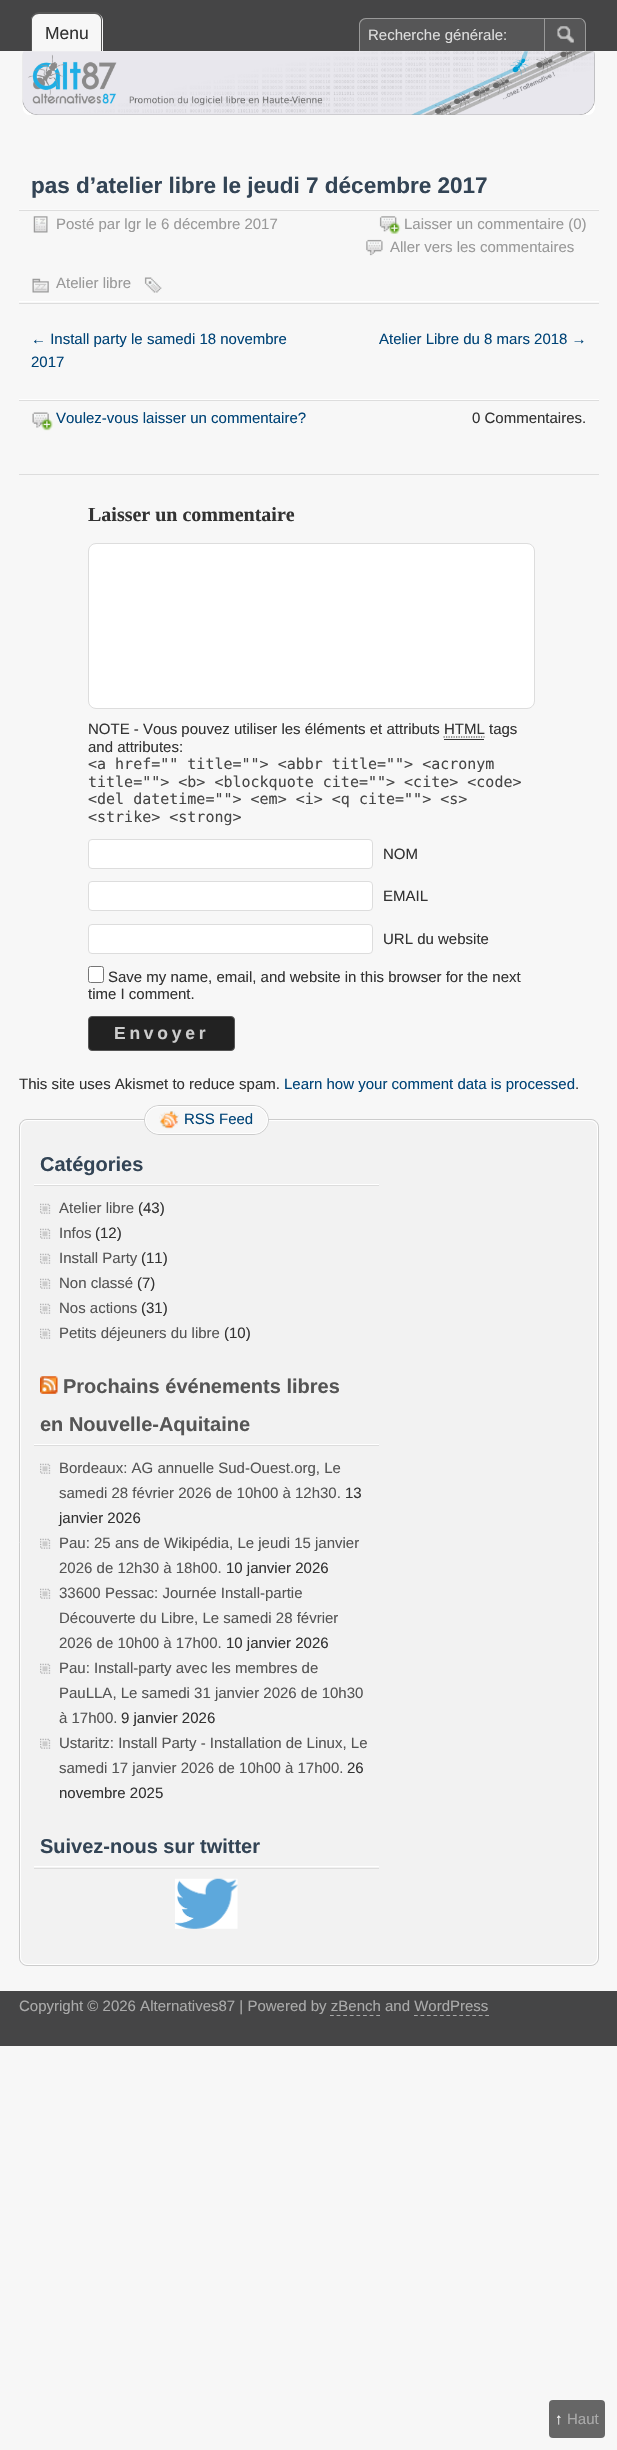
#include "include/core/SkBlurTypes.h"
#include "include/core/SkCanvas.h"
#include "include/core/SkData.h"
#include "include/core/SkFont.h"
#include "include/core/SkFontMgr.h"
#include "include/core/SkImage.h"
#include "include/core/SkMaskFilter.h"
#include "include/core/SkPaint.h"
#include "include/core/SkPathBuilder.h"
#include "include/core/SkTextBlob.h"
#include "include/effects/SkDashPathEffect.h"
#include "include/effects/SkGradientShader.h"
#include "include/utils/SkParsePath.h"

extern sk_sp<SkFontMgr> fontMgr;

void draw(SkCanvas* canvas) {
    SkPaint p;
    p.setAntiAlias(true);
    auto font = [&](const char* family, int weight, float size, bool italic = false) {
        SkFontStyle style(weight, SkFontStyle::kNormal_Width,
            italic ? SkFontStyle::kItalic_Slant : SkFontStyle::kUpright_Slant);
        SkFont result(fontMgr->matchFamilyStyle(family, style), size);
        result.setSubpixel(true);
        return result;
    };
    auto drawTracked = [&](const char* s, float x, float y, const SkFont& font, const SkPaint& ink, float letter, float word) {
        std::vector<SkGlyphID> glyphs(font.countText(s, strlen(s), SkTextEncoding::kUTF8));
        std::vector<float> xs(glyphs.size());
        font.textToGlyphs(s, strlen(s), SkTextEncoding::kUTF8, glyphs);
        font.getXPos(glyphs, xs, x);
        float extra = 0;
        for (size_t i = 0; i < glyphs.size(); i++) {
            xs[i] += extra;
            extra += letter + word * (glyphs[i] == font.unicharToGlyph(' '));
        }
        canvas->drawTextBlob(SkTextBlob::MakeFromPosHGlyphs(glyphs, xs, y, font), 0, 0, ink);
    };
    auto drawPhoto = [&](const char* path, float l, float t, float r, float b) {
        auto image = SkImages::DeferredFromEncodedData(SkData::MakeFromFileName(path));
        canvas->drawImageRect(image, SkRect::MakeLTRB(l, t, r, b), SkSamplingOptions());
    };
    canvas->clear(0xFFF7F7F7);
    p.setColor(0xFF454546);
    canvas->drawRect(SkRect::MakeLTRB(0, 0, 617, 51), p);
    p.setColor(0xFFF7F7F7);
    canvas->drawPath(SkPathBuilder().moveTo(39, 13).lineTo(95, 13).cubicTo(99.5f, 13, 103, 16.5f, 103, 21).lineTo(103, 51).lineTo(31, 51).lineTo(31, 21).cubicTo(31, 16.5f, 34.5f, 13, 39, 13).close().detach(), p);
    p.setColor(0xFF555555);
    canvas->drawPath(SkPathBuilder(SkPathFillType::kEvenOdd).moveTo(39, 12).lineTo(95, 12).cubicTo(99, 12, 102, 16, 102, 20).lineTo(102, 51).lineTo(31, 51).lineTo(31, 20).cubicTo(31, 16, 35, 12, 39, 12).close().moveTo(39, 14).lineTo(95, 14).cubicTo(98, 14, 101, 17, 101, 20).lineTo(101, 51).lineTo(32, 51).lineTo(32, 20).cubicTo(32, 17, 35, 14, 39, 14).close().detach(), p);
    auto font1 = font("Liberation Sans", 400, 17.5f);
    p.setColor(0xFF333333);
    canvas->drawString("Menu", 45, 39, font1, p);
    p.setColor(0xFF565657);
    canvas->drawPath(SkPathBuilder().moveTo(367, 18).lineTo(578, 18).cubicTo(582.5f, 18, 586, 21.5f, 586, 26).lineTo(586, 51).lineTo(359, 51).lineTo(359, 26).cubicTo(359, 21.5f, 362.5f, 18, 367, 18).close().detach(), p);
    p.setColor(0xFF999999);
    canvas->drawPath(SkPathBuilder(SkPathFillType::kEvenOdd).moveTo(366, 18).lineTo(579, 18).cubicTo(583, 18, 586, 21, 586, 25).lineTo(586, 51).lineTo(359, 51).lineTo(359, 25).cubicTo(359, 21, 362, 18, 366, 18).close().moveTo(366, 19).lineTo(579, 19).cubicTo(582, 19, 585, 22, 585, 25).lineTo(585, 51).lineTo(360, 51).lineTo(360, 25).cubicTo(360, 22, 363, 19, 366, 19).close().detach(), p);
    auto font2 = font("Liberation Sans", 400, 15);
    p.setColor(0xFFDDDDDD);
    canvas->drawString("Recherche générale:", 368, 40, font2, p);
    canvas->save();
    canvas->clipPath(SkPathBuilder().moveTo(366, 19).lineTo(579, 19).cubicTo(582.5f, 19, 585, 21.5f, 585, 25).lineTo(585, 51).lineTo(360, 51).lineTo(360, 25).cubicTo(360, 21.5f, 362.5f, 19, 366, 19).close().detach(), true);
    p.setColor(0xFF565657);
    canvas->drawRect(SkRect::MakeLTRB(545, 19, 583, 51), p);
    canvas->restore();
    drawPhoto("media/1.png", 557, 26, 574, 43);
    p.setColor(0xFF999999);
    canvas->drawRect(SkRect::MakeLTRB(544, 19, 545, 51), p);
    drawPhoto("media/2.png", 22, 51, 595, 115);
    p.setColor(0xFFFAFAFA);
    canvas->drawRect(SkRect::MakeLTRB(19, 209, 599, 210), p);
    auto font3 = font("Liberation Sans", 700, 22.5f);
    p.setColor(0xFF334455);
    canvas->drawString("pas d’atelier libre le jeudi 7 décembre 2017", 31, 193, font3, p);
    p.setColor(0xFFDDDDDD);
    canvas->drawRect(SkRect::MakeLTRB(19, 210, 599, 211), p);
    drawPhoto("media/3.png", 33, 216, 48, 233);
    p.setColor(0xFF999999);
    canvas->drawString("Posté par lgr le 6 décembre 2017", 56, 229, font2, p);
    drawPhoto("media/4.png", 379, 216, 401, 234);
    canvas->drawString("Laisser un commentaire (0)", 404, 229, font2, p);
    drawPhoto("media/5.png", 366, 239, 383, 256);
    canvas->drawString("Aller vers les commentaires", 390, 252, font2, p);
    p.setColor(0xFFFFFFFF);
    canvas->drawRect(SkRect::MakeLTRB(19, 301, 599, 302), p);
    drawPhoto("media/6.png", 32, 278, 49, 293);
    p.setColor(0xFF999999);
    canvas->drawString("Atelier libre", 56, 288, font2, p);
    drawPhoto("media/7.png", 144, 277, 162, 293);
    p.setColor(0xFFDDDDDD);
    canvas->drawRect(SkRect::MakeLTRB(19, 303, 599, 304), p);
    p.setColor(0xFFFFFFFF);
    canvas->drawRect(SkRect::MakeLTRB(19, 399, 599, 400), p);
    p.setColor(0xFF004477);
    {
        const struct { const char* s; float x, y; } items[] = {
            {"← Install party le samedi 18 novembre", 31, 344},
            {"2017", 31, 367},
            {"Atelier Libre du 8 mars 2018 →", 379, 344},
        };
        for (auto [s, x, y] : items) {
            canvas->drawString(s, x, y, font2, p);
        }
    }
    p.setColor(0xFFDDDDDD);
    canvas->drawRect(SkRect::MakeLTRB(19, 400, 599, 401), p);
    drawPhoto("media/8.png", 32, 412, 53, 431);
    p.setColor(0xFF004477);
    canvas->drawString("Voulez-vous laisser un commentaire?", 56, 423, font2, p);
    p.setColor(0xFF333333);
    canvas->drawString("0 Commentaires.", 472, 423, font2, p);
    p.setColor(0xFFDDDDDD);
    canvas->drawRect(SkRect::MakeLTRB(19, 474, 599, 475), p);
    auto font4 = font("Liberation Serif", 700, 20);
    p.setColor(0xFF333333);
    canvas->drawString("Laisser un commentaire", 88, 521, font4, p);
    p.setColor(0xFFFFFFFF);
    canvas->drawRoundRect(SkRect::MakeLTRB(88.5f, 543.5f, 534.5f, 708.5f), 7.5f, 7.5f, p);
    p.setStyle(SkPaint::kStroke_Style);
    p.setStrokeWidth(1);
    p.setColor(0xFFDDDDDD);
    canvas->drawRoundRect(SkRect::MakeLTRB(88.5f, 543.5f, 534.5f, 708.5f), 7.5f, 7.5f, p);
    p.setStyle(SkPaint::kFill_Style);
    p.setColor(0xFF333333);
    canvas->drawString("NOTE - Vous pouvez utiliser les éléments et attributs HTML tags", 88, 734, font2, p);
    p.setStyle(SkPaint::kStroke_Style);
    p.setStrokeWidth(1.2f);
    p.setPathEffect(SkDashPathEffect::Make({{1.25f, 1.25f}}, 0));
    canvas->drawPath(SkPathBuilder().moveTo(443.5f, 737).lineTo(484.5f, 737).detach(), p);
    p.setPathEffect(nullptr);
    p.setStyle(SkPaint::kFill_Style);
    canvas->drawRect(SkRect::MakeLTRB(444, 739, 484, 740), p);
    canvas->drawString("and attributes:", 88, 752, font2, p);
    auto font5 = font("DejaVu Sans Mono", 400, 15);
    p.setColor(0xFF464646);
    {
        const struct { const char* s; float x, y; } items[] = {
            {"<a href=\"\" title=\"\"> <abbr title=\"\"> <acronym", 88, 769},
            {"title=\"\"> <b> <blockquote cite=\"\"> <cite> <code>", 88, 787},
            {"<del datetime=\"\"> <em> <i> <q cite=\"\"> <s>", 88, 804},
            {"<strike> <strong>", 88, 822},
        };
        for (auto [s, x, y] : items) {
            canvas->drawString(s, x, y, font5, p);
        }
    }
    p.setColor(0xFFFFFFFF);
    canvas->drawRoundRect(SkRect::MakeLTRB(88.5f, 839.5f, 372.5f, 868.5f), 3.5f, 3.5f, p);
    p.setStyle(SkPaint::kStroke_Style);
    p.setStrokeWidth(1);
    p.setColor(0xFFDDDDDD);
    canvas->drawRoundRect(SkRect::MakeLTRB(88.5f, 839.5f, 372.5f, 868.5f), 3.5f, 3.5f, p);
    p.setStyle(SkPaint::kFill_Style);
    p.setColor(0xFF333333);
    canvas->drawString("NOM", 383, 859, font2, p);
    p.setColor(0xFFFFFFFF);
    canvas->drawRoundRect(SkRect::MakeLTRB(88.5f, 881.5f, 372.5f, 910.5f), 3.5f, 3.5f, p);
    p.setStyle(SkPaint::kStroke_Style);
    p.setColor(0xFFDDDDDD);
    canvas->drawRoundRect(SkRect::MakeLTRB(88.5f, 881.5f, 372.5f, 910.5f), 3.5f, 3.5f, p);
    p.setStyle(SkPaint::kFill_Style);
    p.setColor(0xFF333333);
    canvas->drawString("EMAIL", 383, 901, font2, p);
    p.setColor(0xFFFFFFFF);
    canvas->drawRoundRect(SkRect::MakeLTRB(88.5f, 924.5f, 372.5f, 953.5f), 3.5f, 3.5f, p);
    p.setStyle(SkPaint::kStroke_Style);
    p.setColor(0xFFDDDDDD);
    canvas->drawRoundRect(SkRect::MakeLTRB(88.5f, 924.5f, 372.5f, 953.5f), 3.5f, 3.5f, p);
    p.setStyle(SkPaint::kFill_Style);
    p.setColor(0xFF333333);
    canvas->drawString("URL du website", 383, 944, font2, p);
    p.setColor(0xFFFFFFFF);
    canvas->drawRoundRect(SkRect::MakeLTRB(88.5f, 966.5f, 103.5f, 982.5f), 2, 2, p);
    p.setStyle(SkPaint::kStroke_Style);
    p.setColor(0xFF767676);
    canvas->drawRoundRect(SkRect::MakeLTRB(88.5f, 966.5f, 103.5f, 982.5f), 2, 2, p);
    p.setStyle(SkPaint::kFill_Style);
    p.setColor(0xFF333333);
    canvas->drawString("Save my name, email, and website in this browser for the next", 108, 982, font2, p);
    canvas->drawString("time I comment.", 88, 999, font2, p);
    p.setColor(0xFF222222);
    canvas->drawRoundRect(SkRect::MakeLTRB(88.5f, 1016.5f, 234.5f, 1050.5f), 3.5f, 3.5f, p);
    p.setStyle(SkPaint::kStroke_Style);
    p.setColor(0xFF555555);
    canvas->drawRoundRect(SkRect::MakeLTRB(88.5f, 1016.5f, 234.5f, 1050.5f), 3.5f, 3.5f, p);
    auto font6 = font("Liberation Sans", 700, 17.5f);
    p.setStyle(SkPaint::kFill_Style);
    p.setColor(0xFFCCCCCC);
    drawTracked("Envoyer", 114, 1039, font6, p, 3.75f, 0);
    p.setColor(0xFF333333);
    canvas->drawString("This site uses Akismet to reduce spam.", 19, 1089, font2, p);
    p.setColor(0xFF004477);
    canvas->drawString("Learn how your comment data is processed", 284, 1089, font2, p);
    p.setColor(0xFF333333);
    canvas->drawString(".", 575, 1089, font2, p);
    p.setColor(0xFFF2F2F2);
    canvas->drawRoundRect(SkRect::MakeLTRB(19.5f, 1119.5f, 598.5f, 1965.5f), 7.5f, 7.5f, p);
    p.setStyle(SkPaint::kStroke_Style);
    p.setColor(0xFFCCCCCC);
    canvas->drawRoundRect(SkRect::MakeLTRB(19.5f, 1119.5f, 598.5f, 1965.5f), 7.5f, 7.5f, p);
    p.setColor(0xFFFFFFFF);
    canvas->drawRoundRect(SkRect::MakeLTRB(20.5f, 1120.5f, 597.5f, 1964.5f), 7.5f, 7.5f, p);
    p.setColor(0xFFCCCCCC);
    canvas->drawRoundRect(SkRect::MakeLTRB(144.5f, 1105.5f, 268.5f, 1134.5f), 14.5f, 14.5f, p);
    p.setStyle(SkPaint::kFill_Style);
    p.setColor(0xFFF7F7F7);
    canvas->drawRoundRect(SkRect::MakeLTRB(145.5f, 1106.5f, 267.5f, 1133.5f), 13.5f, 13.5f, p);
    p.setStyle(SkPaint::kStroke_Style);
    p.setColor(0xFFFFFFFF);
    canvas->drawRoundRect(SkRect::MakeLTRB(145.5f, 1106.5f, 267.5f, 1133.5f), 13.5f, 13.5f, p);
    drawPhoto("media/9.png", 159, 1111, 179, 1129);
    p.setStyle(SkPaint::kFill_Style);
    p.setColor(0xFF004477);
    canvas->drawString("RSS Feed", 184, 1124, font2, p);
    p.setColor(0xFFFFFFFF);
    canvas->drawRect(SkRect::MakeLTRB(34, 1184, 379, 1185), p);
    auto font7 = font("Liberation Sans", 700, 20);
    p.setColor(0xFF334455);
    canvas->drawString("Catégories", 40, 1171, font7, p);
    p.setColor(0xFFDDDDDD);
    canvas->drawRect(SkRect::MakeLTRB(34, 1185, 379, 1186), p);
    drawPhoto("media/10.png", 40, 1203, 51, 1214);
    p.setColor(0xFF555555);
    canvas->drawString("Atelier libre", 59, 1213, font2, p);
    p.setColor(0xFF333333);
    canvas->drawString("(43)", 138, 1213, font2, p);
    drawPhoto("media/10.png", 40, 1228, 51, 1239);
    p.setColor(0xFF555555);
    canvas->drawString("Infos", 59, 1238, font2, p);
    p.setColor(0xFF333333);
    canvas->drawString("(12)", 95, 1238, font2, p);
    drawPhoto("media/10.png", 40, 1253, 51, 1264);
    p.setColor(0xFF555555);
    canvas->drawString("Install Party", 59, 1263, font2, p);
    p.setColor(0xFF333333);
    canvas->drawString("(11)", 141, 1263, font2, p);
    drawPhoto("media/10.png", 40, 1278, 51, 1289);
    p.setColor(0xFF555555);
    canvas->drawString("Non classé", 59, 1288, font2, p);
    p.setColor(0xFF333333);
    canvas->drawString("(7)", 137, 1288, font2, p);
    drawPhoto("media/10.png", 40, 1303, 51, 1314);
    p.setColor(0xFF555555);
    canvas->drawString("Nos actions", 59, 1313, font2, p);
    p.setColor(0xFF333333);
    canvas->drawString("(31)", 141, 1313, font2, p);
    drawPhoto("media/10.png", 40, 1328, 51, 1339);
    p.setColor(0xFF555555);
    canvas->drawString("Petits déjeuners du libre", 59, 1338, font2, p);
    p.setColor(0xFF333333);
    canvas->drawString("(10)", 224, 1338, font2, p);
    p.setColor(0xFFFFFFFF);
    canvas->drawRect(SkRect::MakeLTRB(34, 1444, 379, 1445), p);
    drawPhoto("media/11.png", 40, 1376, 58, 1394);
    p.setColor(0xFF555555);
    canvas->drawString("Prochains événements libres", 63, 1393, font7, p);
    canvas->drawString("en Nouvelle-Aquitaine", 40, 1431, font7, p);
    p.setColor(0xFFDDDDDD);
    canvas->drawRect(SkRect::MakeLTRB(34, 1445, 379, 1446), p);
    drawPhoto("media/10.png", 40, 1463, 51, 1474);
    p.setColor(0xFF555555);
    canvas->drawString("Bordeaux: AG annuelle Sud-Ouest.org, Le", 59, 1473, font2, p);
    canvas->drawString("samedi 28 février 2026 de 10h00 à 12h30.", 59, 1498, font2, p);
    p.setColor(0xFF333333);
    canvas->drawString("13", 345, 1498, font2, p);
    canvas->drawString("janvier 2026", 59, 1523, font2, p);
    drawPhoto("media/10.png", 40, 1538, 51, 1549);
    p.setColor(0xFF555555);
    canvas->drawString("Pau: 25 ans de Wikipédia, Le jeudi 15 janvier", 59, 1548, font2, p);
    canvas->drawString("2026 de 12h30 à 18h00.", 59, 1573, font2, p);
    p.setColor(0xFF333333);
    canvas->drawString("10 janvier 2026", 226, 1573, font2, p);
    drawPhoto("media/10.png", 40, 1588, 51, 1599);
    p.setColor(0xFF555555);
    {
        const struct { const char* s; float x, y; } items[] = {
            {"33600 Pessac: Journée Install-partie", 59, 1598},
            {"Découverte du Libre, Le samedi 28 février", 59, 1623},
            {"2026 de 10h00 à 17h00.", 59, 1648},
        };
        for (auto [s, x, y] : items) {
            canvas->drawString(s, x, y, font2, p);
        }
    }
    p.setColor(0xFF333333);
    canvas->drawString("10 janvier 2026", 226, 1648, font2, p);
    drawPhoto("media/10.png", 40, 1663, 51, 1674);
    p.setColor(0xFF555555);
    {
        const struct { const char* s; float x, y; } items[] = {
            {"Pau: Install-party avec les membres de", 59, 1673},
            {"PauLLA, Le samedi 31 janvier 2026 de 10h30", 59, 1698},
            {"à 17h00.", 59, 1723},
        };
        for (auto [s, x, y] : items) {
            canvas->drawString(s, x, y, font2, p);
        }
    }
    p.setColor(0xFF333333);
    canvas->drawString("9 janvier 2026", 121, 1723, font2, p);
    drawPhoto("media/10.png", 40, 1738, 51, 1749);
    p.setColor(0xFF555555);
    canvas->drawString("Ustaritz: Install Party - Installation de Linux, Le", 59, 1748, font2, p);
    canvas->drawString("samedi 17 janvier 2026 de 10h00 à 17h00.", 59, 1773, font2, p);
    p.setColor(0xFF333333);
    canvas->drawString("26", 347, 1773, font2, p);
    canvas->drawString("novembre 2025", 59, 1798, font2, p);
    p.setColor(0xFFFFFFFF);
    canvas->drawRect(SkRect::MakeLTRB(34, 1866, 379, 1867), p);
    p.setColor(0xFF334455);
    canvas->drawString("Suivez-nous sur twitter", 40, 1853, font7, p);
    p.setColor(0xFFDDDDDD);
    canvas->drawRect(SkRect::MakeLTRB(34, 1868, 379, 1869), p);
    drawPhoto("media/12.png", 175, 1878, 238, 1929);
    p.setColor(0xFF454546);
    canvas->drawRect(SkRect::MakeLTRB(0, 1991, 617, 2046), p);
    p.setColor(0xFFAAAAAA);
    canvas->drawString("Copyright © 2026 Alternatives87 | Powered by zBench and WordPress", 19, 2011, font2, p);
    p.setStyle(SkPaint::kStroke_Style);
    p.setStrokeWidth(1.2f);
    p.setPathEffect(SkDashPathEffect::Make({{3.75f, 2.86f}}, 0));
    canvas->drawPath(SkPathBuilder().moveTo(330, 2015.5f).lineTo(380, 2015.5f).detach(), p);
    p.setPathEffect(nullptr);
    p.setPathEffect(SkDashPathEffect::Make({{3.75f, 2.73f}}, 0));
    canvas->drawPath(SkPathBuilder().moveTo(414, 2015.5f).lineTo(489, 2015.5f).detach(), p);
    p.setPathEffect(nullptr);
    p.setStyle(SkPaint::kFill_Style);
    p.setColor(0xFF666666);
    canvas->drawRoundRect(SkRect::MakeLTRB(549, 2400, 605, 2438), 4, 4, p);
    auto font8 = font("Liberation Sans", 700, 15);
    p.setColor(0xFFFAFAFA);
    canvas->drawString("↑", 555, 2424, font8, p);
    p.setColor(0xFFAAAAAA);
    canvas->drawString("Haut", 567, 2424, font2, p);
}
